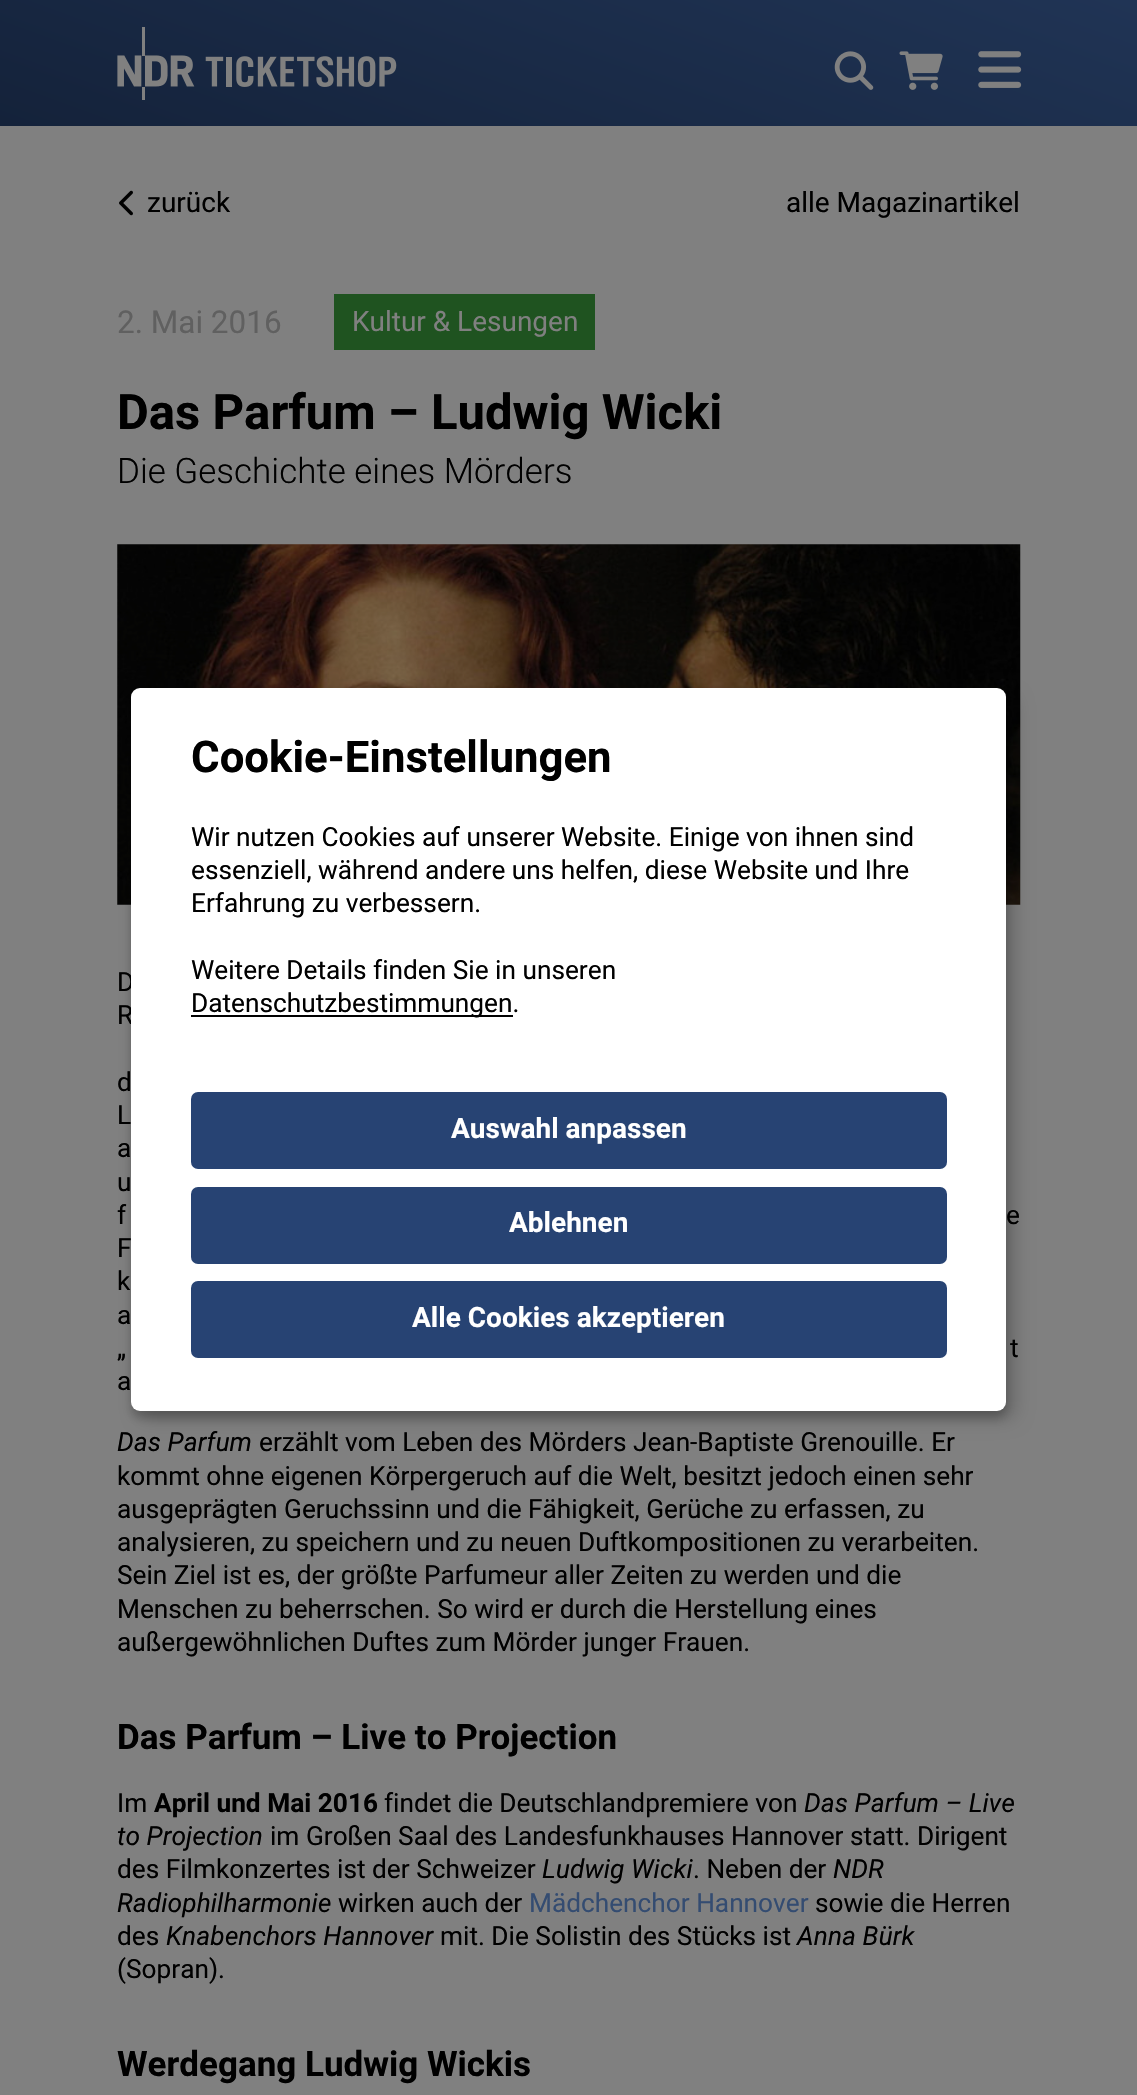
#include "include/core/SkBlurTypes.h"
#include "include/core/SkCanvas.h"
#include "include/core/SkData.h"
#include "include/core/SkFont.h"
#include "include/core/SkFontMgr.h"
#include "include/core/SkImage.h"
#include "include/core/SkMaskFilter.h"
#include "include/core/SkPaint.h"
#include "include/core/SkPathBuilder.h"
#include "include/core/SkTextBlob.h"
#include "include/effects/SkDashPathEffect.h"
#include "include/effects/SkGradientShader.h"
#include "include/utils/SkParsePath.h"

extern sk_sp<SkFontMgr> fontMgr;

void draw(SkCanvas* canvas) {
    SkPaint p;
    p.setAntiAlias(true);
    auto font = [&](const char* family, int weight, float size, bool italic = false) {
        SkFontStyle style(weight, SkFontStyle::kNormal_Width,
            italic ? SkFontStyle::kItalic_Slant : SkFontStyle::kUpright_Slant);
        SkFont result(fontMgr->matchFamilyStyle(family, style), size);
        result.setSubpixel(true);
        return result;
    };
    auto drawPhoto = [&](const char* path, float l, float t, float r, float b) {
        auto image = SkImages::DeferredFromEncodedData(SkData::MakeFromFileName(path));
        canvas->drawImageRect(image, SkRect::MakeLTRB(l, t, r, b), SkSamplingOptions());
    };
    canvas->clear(0xFF808080);
    {
        const SkColor colors[] = {0xFF14223A, 0xFF203455};
        const float stops[] = {0, 1};
        const SkPoint ends[] = {{482, 301}, {656, -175}};
        p.setShader(SkGradientShader::MakeLinear(ends, colors, stops, 2, SkTileMode::kClamp));
        p.setAlpha(255);
    }
    canvas->drawRect(SkRect::MakeLTRB(0, 0, 1137, 126), p);
    drawPhoto("media/1.png", 117, 27, 397, 100);
    drawPhoto("media/2.png", 834, 51, 874, 90);
    drawPhoto("media/3.png", 899, 51, 943, 90);
    drawPhoto("media/4.png", 978, 51, 1022, 88);
    drawPhoto("media/5.png", 119, 190, 133, 216);
    auto font1 = font("Roboto", 400, 28);
    p.setShader(nullptr);
    p.setColor(0xFF000000);
    canvas->drawString("zurück", 147, 212, font1, p);
    canvas->drawString("alle Magazinartikel", 786, 212, font1, p);
    auto font2 = font("Roboto", 400, 31.5f);
    p.setColor(0xFF606060);
    canvas->drawString("2. Mai 2016", 117, 333, font2, p);
    p.setColor(0xFF1F5320);
    canvas->drawRect(SkRect::MakeLTRB(334, 294, 595, 350), p);
    p.setColor(0xFF808080);
    canvas->drawString("Kultur & Lesungen", 352, 331, font1, p);
    auto font3 = font("Roboto", 700, 49);
    p.setColor(0xFF000000);
    canvas->drawString("Das Parfum – Ludwig Wicki", 117, 429, font3, p);
    auto font4 = font("Roboto", 300, 35);
    canvas->drawString("Die Geschichte eines Mörders", 117, 483, font4, p);
    drawPhoto("media/6.png", 117, 544, 1021, 905);
    auto font5 = font("Roboto", 400, 26.25f);
    {
        const struct { const char* s; float x, y; } items[] = {
            {"D", 117, 991},
            {"R", 117, 1024},
            {"d", 117, 1091},
            {"L", 117, 1124},
            {"a", 117, 1157},
            {"u", 117, 1191},
            {"f", 117, 1224},
            {"e", 1006, 1224},
            {"F", 117, 1257},
            {"k", 117, 1290},
            {"a", 117, 1324},
            {"„", 117, 1357},
            {"t", 1010, 1357},
            {"a", 117, 1390},
        };
        for (auto [s, x, y] : items) {
            canvas->drawString(s, x, y, font5, p);
        }
    }
    auto font6 = font("Roboto", 400, 26.25f, true);
    canvas->drawString("Das Parfum", 117, 1451, font6, p);
    {
        const struct { const char* s; float x, y; } items[] = {
            {"erzählt vom Leben des Mörders Jean-Baptiste Grenouille. Er", 259, 1451},
            {"kommt ohne eigenen Körpergeruch auf die Welt, besitzt jedoch einen sehr", 117, 1485},
            {"ausgeprägten Geruchssinn und die Fähigkeit, Gerüche zu erfassen, zu", 117, 1518},
            {"analysieren, zu speichern und zu neuen Duftkompositionen zu verarbeiten.", 117, 1551},
            {"Sein Ziel ist es, der größte Parfumeur aller Zeiten zu werden und die", 117, 1584},
            {"Menschen zu beherrschen. So wird er durch die Herstellung eines", 117, 1618},
            {"außergewöhnlichen Duftes zum Mörder junger Frauen.", 117, 1651},
        };
        for (auto [s, x, y] : items) {
            canvas->drawString(s, x, y, font5, p);
        }
    }
    auto font7 = font("Roboto", 700, 35);
    canvas->drawString("Das Parfum – Live to Projection", 117, 1749, font7, p);
    canvas->drawString("Im", 117, 1812, font5, p);
    auto font8 = font("Roboto", 700, 26.25f);
    canvas->drawString("April und Mai 2016", 154, 1812, font8, p);
    canvas->drawString("findet die Deutschlandpremiere von", 384, 1812, font5, p);
    canvas->drawString("Das Parfum – Live", 804, 1812, font6, p);
    canvas->drawString("to Projection", 117, 1845, font6, p);
    canvas->drawString("im Großen Saal des Landesfunkhauses Hannover statt. Dirigent", 270, 1845, font5, p);
    canvas->drawString("des Filmkonzertes ist der Schweizer", 117, 1878, font5, p);
    canvas->drawString("Ludwig Wicki", 542, 1878, font6, p);
    canvas->drawString(". Neben der", 693, 1878, font5, p);
    canvas->drawString("NDR", 833, 1878, font6, p);
    canvas->drawString("Radiophilharmonie", 117, 1912, font6, p);
    canvas->drawString("wirken auch der", 338, 1912, font5, p);
    p.setColor(0xFF344C71);
    canvas->drawString("Mädchenchor Hannover", 529, 1912, font5, p);
    p.setColor(0xFF000000);
    canvas->drawString("sowie die Herren", 815, 1912, font5, p);
    canvas->drawString("des", 117, 1945, font5, p);
    canvas->drawString("Knabenchors Hannover", 166, 1945, font6, p);
    canvas->drawString("mit. Die Solistin des Stücks ist", 440, 1945, font5, p);
    canvas->drawString("Anna Bürk", 797, 1945, font6, p);
    canvas->drawString("(Sopran).", 117, 1978, font5, p);
    canvas->drawString("Werdegang Ludwig Wickis", 117, 2076, font7, p);
    p.setColor(0x30000000);
    p.setMaskFilter(SkMaskFilter::MakeBlur(kNormal_SkBlurStyle, 9));
    canvas->drawRoundRect(SkRect::MakeLTRB(140, 697, 1015, 1419), 9, 9, p);
    p.setMaskFilter(nullptr);
    p.setColor(0x33000000);
    p.setMaskFilter(SkMaskFilter::MakeBlur(kNormal_SkBlurStyle, 5));
    canvas->drawRoundRect(SkRect::MakeLTRB(131, 695, 1006, 1418), 9, 9, p);
    p.setMaskFilter(nullptr);
    p.setColor(0xFFFFFFFF);
    canvas->drawRoundRect(SkRect::MakeLTRB(131, 688, 1006, 1411), 9, 9, p);
    auto font9 = font("Roboto", 700, 43.75f);
    p.setColor(0xFF000000);
    canvas->drawString("Cookie-Einstellungen", 191, 772, font9, p);
    {
        const struct { const char* s; float x, y; } items[] = {
            {"Wir nutzen Cookies auf unserer Website. Einige von ihnen sind", 191, 846},
            {"essenziell, während andere uns helfen, diese Website und Ihre", 191, 879},
            {"Erfahrung zu verbessern.", 191, 912},
            {"Weitere Details finden Sie in unseren", 191, 979},
        };
        for (auto [s, x, y] : items) {
            canvas->drawString(s, x, y, font5, p);
        }
    }
    canvas->drawRect(SkRect::MakeLTRB(191, 1015, 513, 1017), p);
    canvas->drawString("Datenschutzbestimmungen.", 191, 1012, font5, p);
    p.setColor(0xFF274373);
    canvas->drawRoundRect(SkRect::MakeLTRB(191, 1092, 947, 1169), 7, 7, p);
    auto font10 = font("Roboto", 700, 28);
    p.setColor(0xFFFFFFFF);
    canvas->drawString("Auswahl anpassen", 451, 1138, font10, p);
    p.setColor(0xFF274373);
    canvas->drawRoundRect(SkRect::MakeLTRB(191, 1187, 947, 1264), 7, 7, p);
    p.setColor(0xFFFFFFFF);
    canvas->drawString("Ablehnen", 509, 1232, font10, p);
    p.setColor(0xFF274373);
    canvas->drawRoundRect(SkRect::MakeLTRB(191, 1281, 947, 1358), 7, 7, p);
    p.setColor(0xFFFFFFFF);
    canvas->drawString("Alle Cookies akzeptieren", 412, 1327, font10, p);
}
